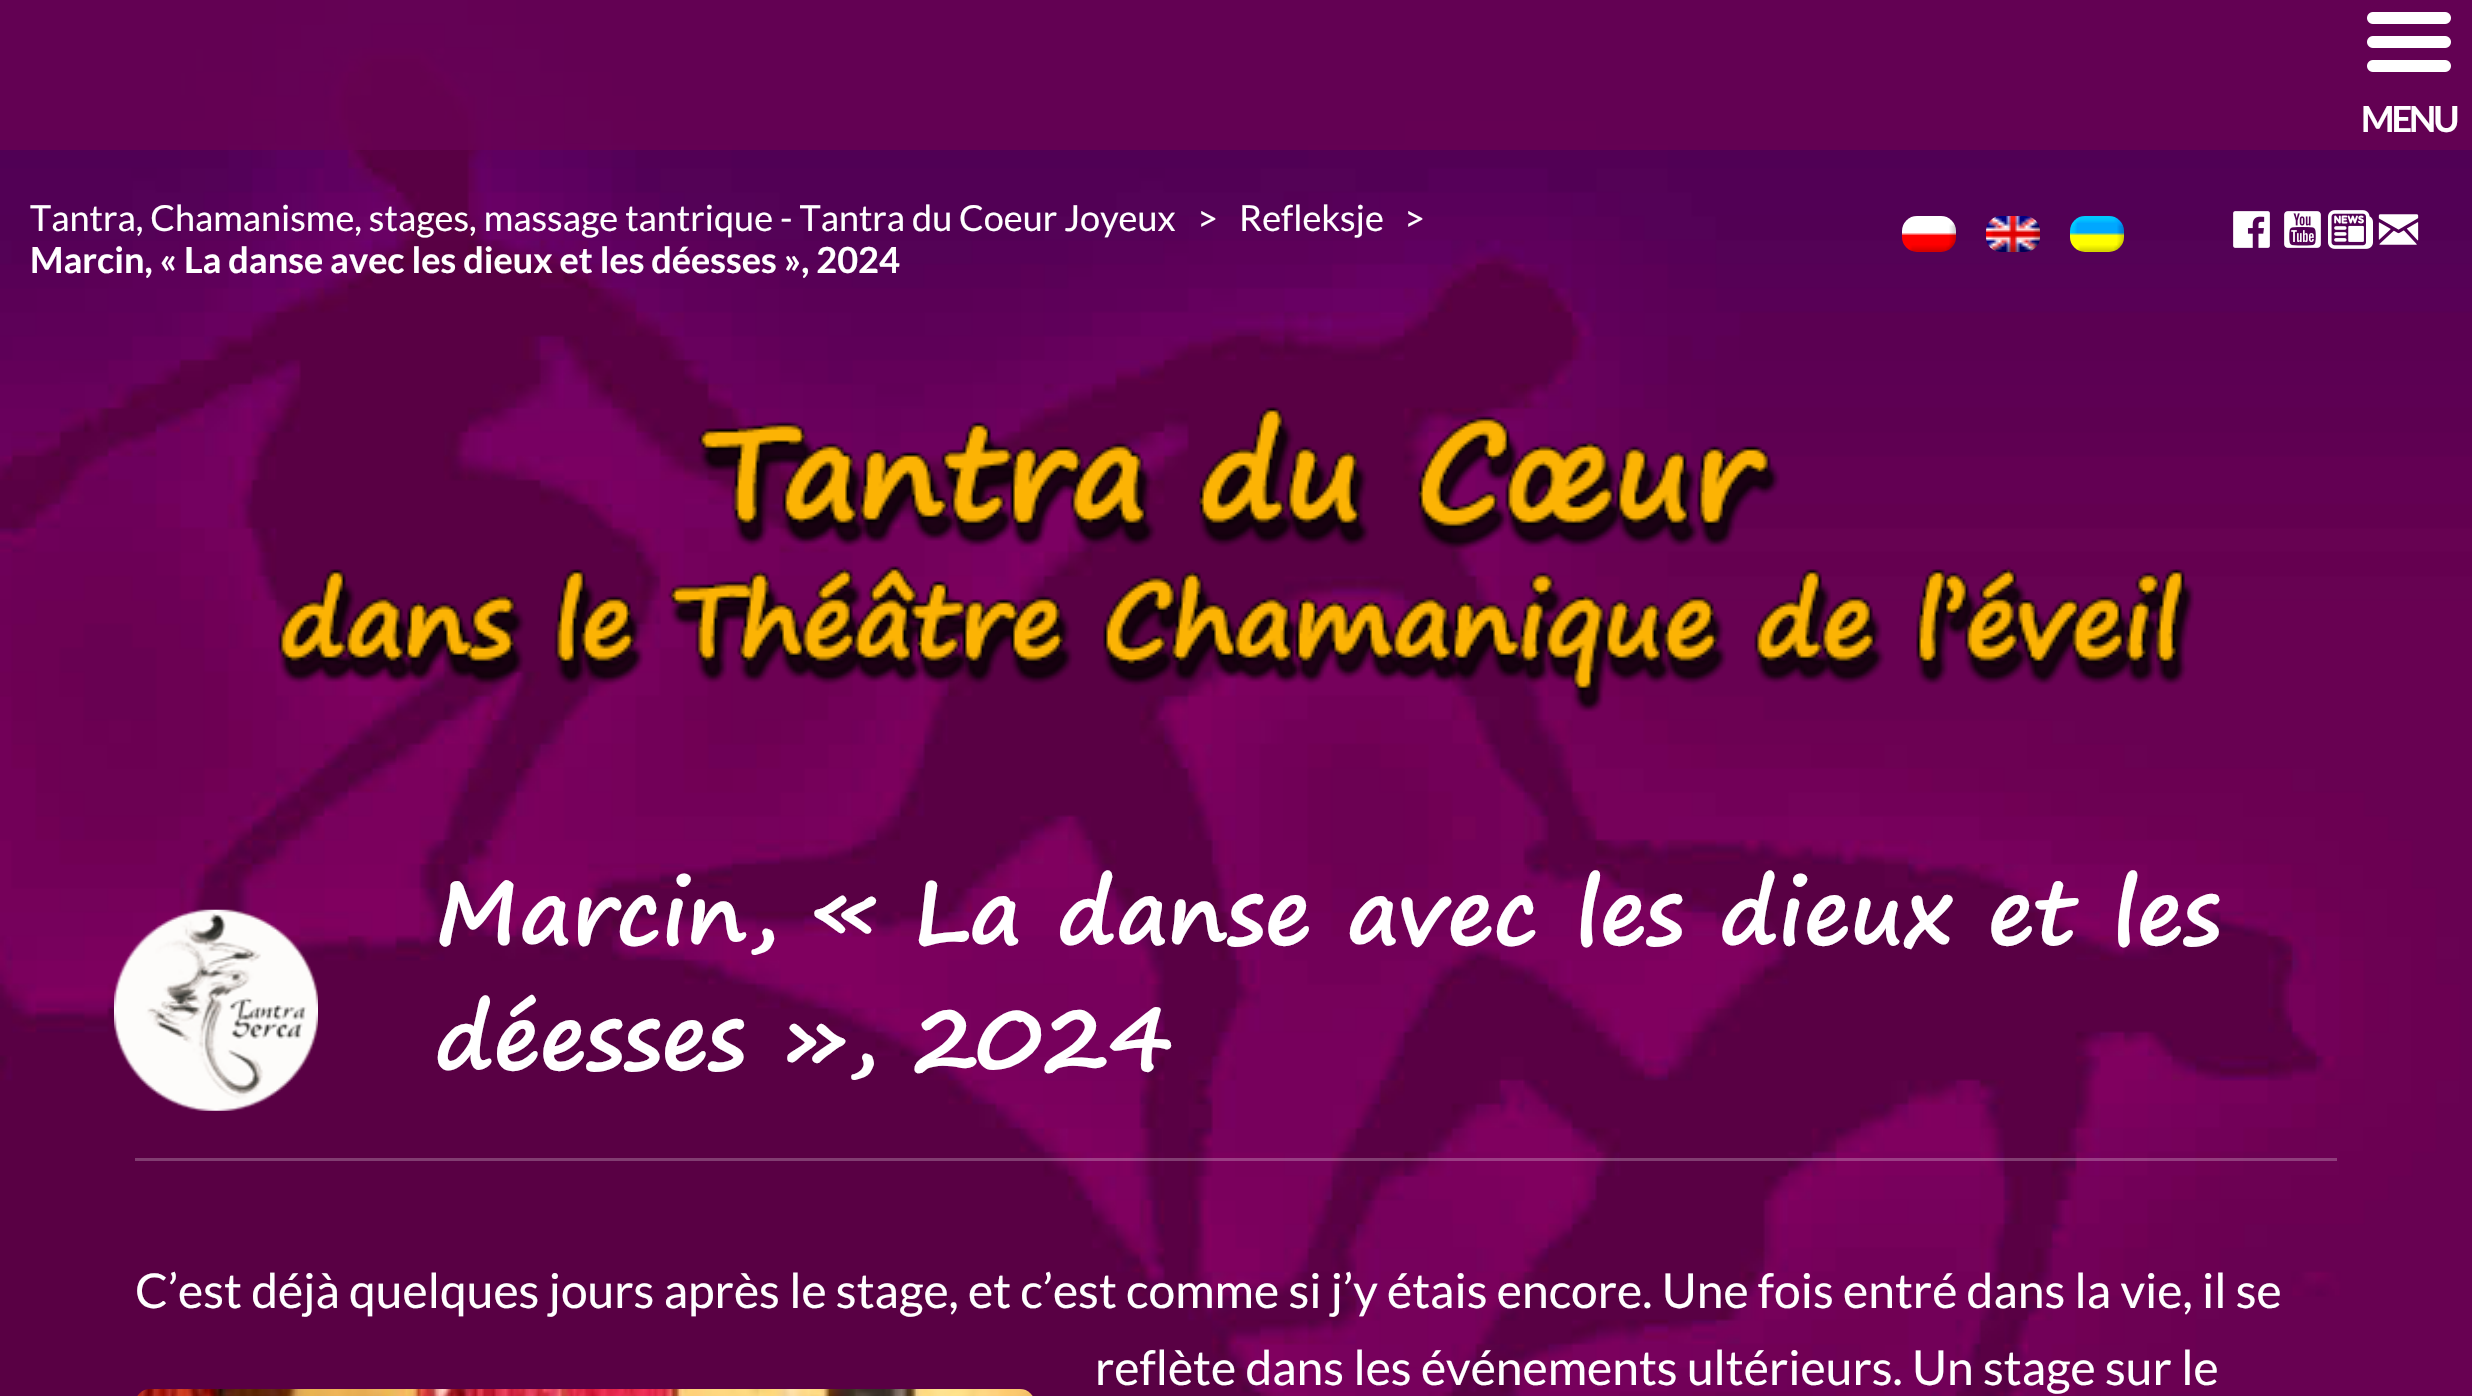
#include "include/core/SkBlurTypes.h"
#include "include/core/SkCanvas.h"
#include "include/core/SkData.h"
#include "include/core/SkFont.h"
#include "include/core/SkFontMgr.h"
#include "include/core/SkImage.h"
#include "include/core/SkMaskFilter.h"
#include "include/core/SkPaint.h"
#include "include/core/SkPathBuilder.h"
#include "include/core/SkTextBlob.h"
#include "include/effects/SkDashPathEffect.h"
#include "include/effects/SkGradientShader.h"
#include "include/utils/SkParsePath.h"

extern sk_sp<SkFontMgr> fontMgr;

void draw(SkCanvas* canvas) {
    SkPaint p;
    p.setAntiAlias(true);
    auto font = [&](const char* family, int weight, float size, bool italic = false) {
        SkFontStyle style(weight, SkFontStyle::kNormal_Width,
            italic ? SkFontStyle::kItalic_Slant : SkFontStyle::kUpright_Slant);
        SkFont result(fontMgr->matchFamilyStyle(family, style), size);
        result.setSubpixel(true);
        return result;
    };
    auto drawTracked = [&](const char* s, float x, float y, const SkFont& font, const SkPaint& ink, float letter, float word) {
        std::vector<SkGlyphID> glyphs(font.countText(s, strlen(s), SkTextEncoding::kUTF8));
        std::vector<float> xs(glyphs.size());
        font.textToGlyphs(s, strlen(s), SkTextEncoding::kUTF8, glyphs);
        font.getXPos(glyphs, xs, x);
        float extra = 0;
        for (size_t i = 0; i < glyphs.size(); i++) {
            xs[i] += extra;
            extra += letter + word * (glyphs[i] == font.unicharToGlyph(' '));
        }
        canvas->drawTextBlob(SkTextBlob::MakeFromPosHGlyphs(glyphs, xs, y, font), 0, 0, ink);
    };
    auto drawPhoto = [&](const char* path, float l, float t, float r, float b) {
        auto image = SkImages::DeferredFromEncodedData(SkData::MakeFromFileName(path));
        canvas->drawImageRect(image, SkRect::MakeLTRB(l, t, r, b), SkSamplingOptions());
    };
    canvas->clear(0xFFFFFFFF);
    drawPhoto("media/1.png", 0, 0, 2472, 1396);
    p.setColor(0xCC680152);
    canvas->drawRect(SkRect::MakeLTRB(0, 0, 2472, 150), p);
    drawPhoto("media/2.png", 2367, 12, 2451, 72);
    auto font1 = font("Lato", 700, 36);
    p.setColor(0xFFFFFFFF);
    drawTracked("MENU", 2361, 132, font1, p, -3, 0);
    auto font2 = font("Lato", 400, 36);
    {
        const struct { const char* s; float x, y; } items[] = {
            {"Tantra, Chamanisme, stages, massage tantrique - Tantra du Coeur Joyeux", 30, 231},
            {">", 1197, 231},
            {"Refleksje", 1239, 231},
            {">", 1404, 231},
        };
        for (auto [s, x, y] : items) {
            canvas->drawString(s, x, y, font2, p);
        }
    }
    canvas->drawString("Marcin, « La danse avec les dieux et les déesses », 2024", 30, 273, font1, p);
    drawPhoto("media/3.png", 1902, 216, 1956, 252);
    drawPhoto("media/4.png", 1986, 216, 2040, 252);
    drawPhoto("media/5.png", 2070, 216, 2124, 252);
    drawPhoto("media/6.png", 2233, 211, 2270, 248);
    drawPhoto("media/7.png", 2284, 211, 2321, 248);
    drawPhoto("media/8.png", 2328, 210, 2373, 249);
    drawPhoto("media/9.png", 2378, 214, 2419, 245);
    drawPhoto("media/10.png", 278, 407, 2194, 712);
    p.setColor(0x3DFFFFFF);
    canvas->drawRect(SkRect::MakeLTRB(135, 1158, 2337, 1161), p);
    drawPhoto("media/11.png", 114, 909, 318, 1111);
    auto font3 = font("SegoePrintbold", 400, 89.25f);
    p.setColor(0xFFFFFFFF);
    canvas->drawString("Marcin, « La danse avec les dieux et les", 435, 944, font3, p);
    canvas->drawString("déesses », 2024", 435, 1069, font3, p);
    auto font4 = font("Lato", 400, 48);
    canvas->drawString("C’est déjà quelques jours après le stage, et c’est comme si j’y étais encore. Une fois entré dans la vie, il se", 135, 1308, font4, p);
    drawPhoto("media/12.png", 137, 1389, 1033, 1396);
    canvas->drawString("reflète dans les événements ultérieurs. Un stage sur le", 1095, 1385, font4, p);
}
